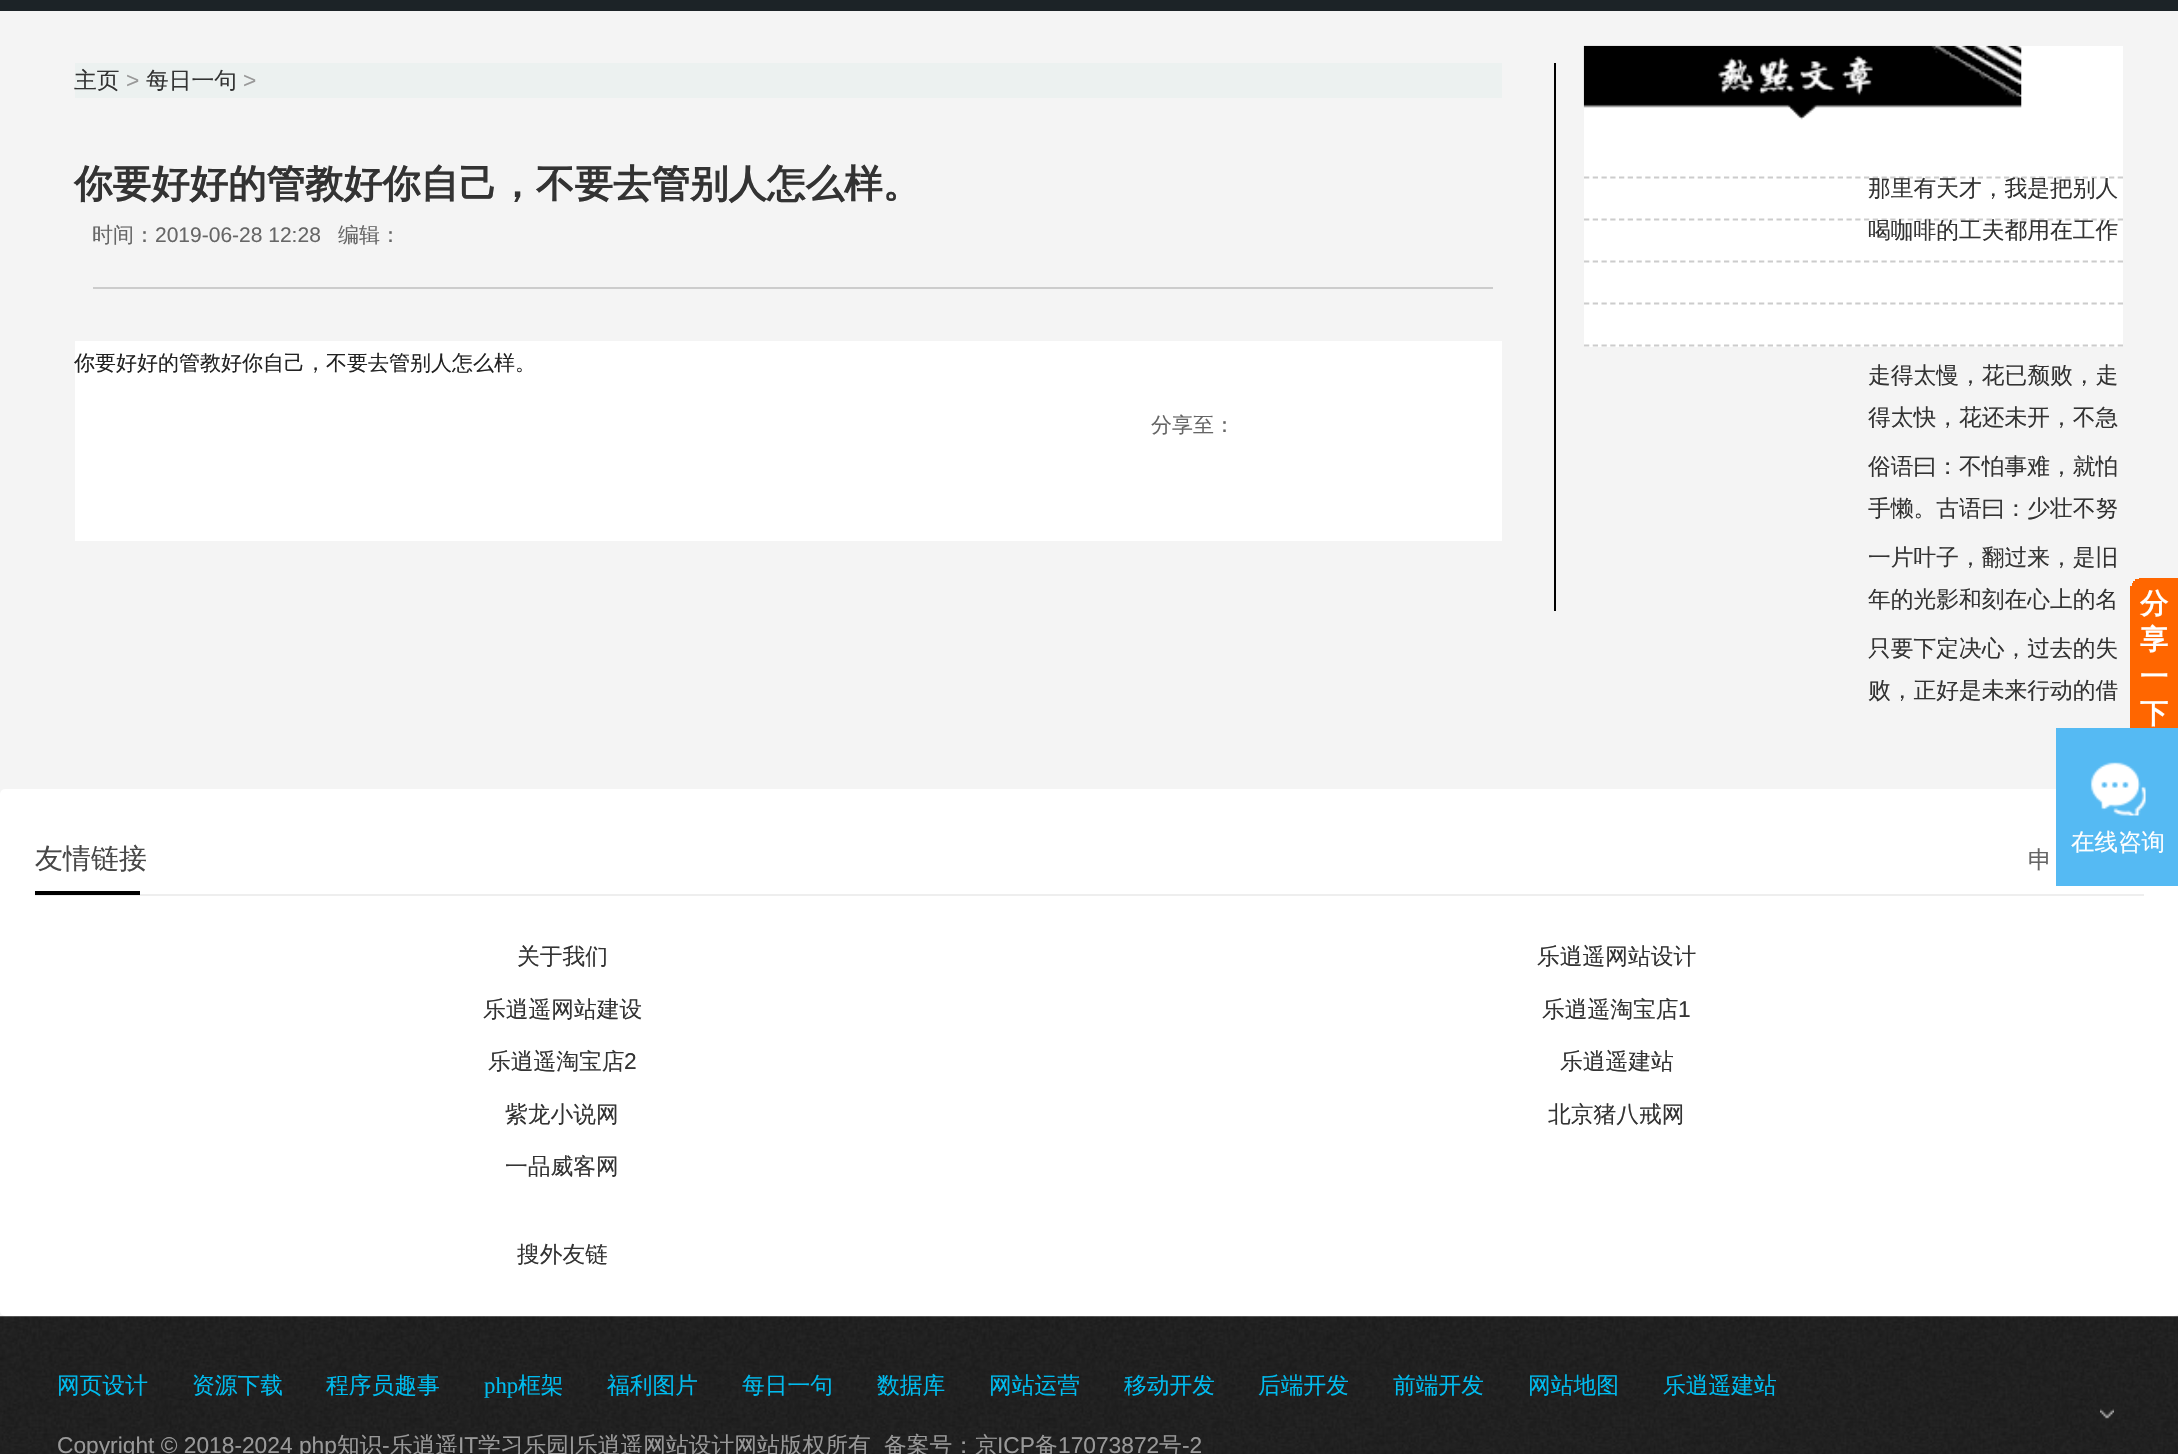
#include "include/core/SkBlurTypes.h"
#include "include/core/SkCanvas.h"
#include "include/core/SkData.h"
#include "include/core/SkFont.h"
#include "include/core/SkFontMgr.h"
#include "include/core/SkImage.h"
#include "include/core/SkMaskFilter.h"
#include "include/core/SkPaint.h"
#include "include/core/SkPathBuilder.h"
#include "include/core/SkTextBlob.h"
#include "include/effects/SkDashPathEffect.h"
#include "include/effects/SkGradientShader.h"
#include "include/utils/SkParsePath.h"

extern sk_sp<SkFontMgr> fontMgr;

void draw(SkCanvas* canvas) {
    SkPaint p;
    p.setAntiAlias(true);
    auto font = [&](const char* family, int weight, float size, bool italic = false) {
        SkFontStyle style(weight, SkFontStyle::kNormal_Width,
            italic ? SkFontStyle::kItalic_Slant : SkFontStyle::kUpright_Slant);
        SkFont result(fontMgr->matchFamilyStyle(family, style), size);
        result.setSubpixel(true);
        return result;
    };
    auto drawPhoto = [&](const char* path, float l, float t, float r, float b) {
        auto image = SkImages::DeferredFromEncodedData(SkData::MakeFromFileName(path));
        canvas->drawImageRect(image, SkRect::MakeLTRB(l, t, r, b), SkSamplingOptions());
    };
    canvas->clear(0xFFF4F4F4);
    {
        const struct { float l, t, r, b; SkColor color; } items[] = {
            {0, 0, 2178, 11, 0xFF1C2327},
            {1554, 63, 1556, 611, 0xFF000000},
            {75, 63, 1502, 98, 0xFFECF1F0},
        };
        for (auto [l, t, r, b, color] : items) {
            p.setColor(color);
            canvas->drawRect(SkRect::MakeLTRB(l, t, r, b), p);
        }
    }
    auto font1 = font("WenQuanYi Zen Hei", 500, 22.75f);
    p.setColor(0xFF333333);
    canvas->drawString("主页", 74, 88, font1, p);
    auto font2 = font("Liberation Sans", 400, 22.75f);
    p.setColor(0xFF999999);
    canvas->drawString(">", 126, 88, font2, p);
    p.setColor(0xFF333333);
    canvas->drawString("每日一句", 146, 88, font1, p);
    p.setColor(0xFF999999);
    canvas->drawString(">", 243, 88, font2, p);
    auto font3 = font("WenQuanYi Zen Hei", 700, 38.5f);
    p.setColor(0xFF333333);
    canvas->drawString("你要好好的管教好你自己，不要去管别人怎么样。", 74, 197, font3, p);
    p.setColor(0xFFCCCCCC);
    canvas->drawRect(SkRect::MakeLTRB(93, 287, 1493, 289), p);
    auto font4 = font("WenQuanYi Zen Hei", 500, 21);
    p.setColor(0xFF666666);
    canvas->drawString("时间：", 92, 242, font4, p);
    auto font5 = font("Liberation Sans", 400, 21);
    canvas->drawString("2019-06-28 12:28", 155, 242, font5, p);
    canvas->drawString("编辑：", 338, 242, font4, p);
    p.setColor(0xFFFFFFFF);
    canvas->drawRect(SkRect::MakeLTRB(75, 341, 1502, 541), p);
    p.setColor(0xFF222222);
    canvas->drawString("你要好好的管教好你自己，不要去管别人怎么样。", 74, 370, font4, p);
    p.setColor(0xFF666666);
    canvas->drawString("分享至：", 1151, 432, font4, p);
    p.setColor(0xFFFFFFFF);
    canvas->drawRect(SkRect::MakeLTRB(1584, 46, 2123, 347), p);
    drawPhoto("media/1.png", 1583, 45, 2022, 120);
    p.setStyle(SkPaint::kStroke_Style);
    p.setStrokeWidth(1.8f);
    p.setColor(0xFFCCCCCC);
    p.setPathEffect(SkDashPathEffect::Make({{5.25f, 3.5f}}, 0));
    canvas->drawPath(SkPathBuilder().moveTo(1584, 177.5f).lineTo(2123, 177.5f).detach(), p);
    p.setPathEffect(nullptr);
    p.setStyle(SkPaint::kFill_Style);
    p.setColor(0xFF333333);
    canvas->drawString("那里有天才，我是把别人", 1868, 196, font1, p);
    p.setStyle(SkPaint::kStroke_Style);
    p.setColor(0xFFCCCCCC);
    p.setPathEffect(SkDashPathEffect::Make({{5.25f, 3.5f}}, 0));
    canvas->drawPath(SkPathBuilder().moveTo(1584, 219.5f).lineTo(2123, 219.5f).detach(), p);
    p.setPathEffect(nullptr);
    p.setStyle(SkPaint::kFill_Style);
    p.setColor(0xFF333333);
    {
        const struct { const char* s; float x, y; } items[] = {
            {"喝咖啡的工夫都用在工作", 1868, 238},
            {"走得太慢，花已颓败，走", 1868, 383},
            {"得太快，花还未开，不急", 1868, 425},
        };
        for (auto [s, x, y] : items) {
            canvas->drawString(s, x, y, font1, p);
        }
    }
    p.setStyle(SkPaint::kStroke_Style);
    p.setColor(0xFFCCCCCC);
    p.setPathEffect(SkDashPathEffect::Make({{5.25f, 3.5f}}, 0));
    canvas->drawPath(SkPathBuilder().moveTo(1584, 261.5f).lineTo(2123, 261.5f).detach(), p);
    p.setPathEffect(nullptr);
    p.setStyle(SkPaint::kFill_Style);
    p.setColor(0xFF333333);
    canvas->drawString("俗语曰：不怕事难，就怕", 1868, 474, font1, p);
    canvas->drawString("手懒。古语曰：少壮不努", 1868, 516, font1, p);
    p.setStyle(SkPaint::kStroke_Style);
    p.setColor(0xFFCCCCCC);
    p.setPathEffect(SkDashPathEffect::Make({{5.25f, 3.5f}}, 0));
    canvas->drawPath(SkPathBuilder().moveTo(1584, 303.5f).lineTo(2123, 303.5f).detach(), p);
    p.setPathEffect(nullptr);
    p.setStyle(SkPaint::kFill_Style);
    p.setColor(0xFF333333);
    canvas->drawString("一片叶子，翻过来，是旧", 1868, 565, font1, p);
    canvas->drawString("年的光影和刻在心上的名", 1868, 607, font1, p);
    p.setStyle(SkPaint::kStroke_Style);
    p.setColor(0xFFCCCCCC);
    p.setPathEffect(SkDashPathEffect::Make({{5.25f, 3.5f}}, 0));
    canvas->drawPath(SkPathBuilder().moveTo(1584, 345.5f).lineTo(2123, 345.5f).detach(), p);
    p.setPathEffect(nullptr);
    p.setStyle(SkPaint::kFill_Style);
    p.setColor(0xFF333333);
    canvas->drawString("只要下定决心，过去的失", 1868, 656, font1, p);
    canvas->drawString("败，正好是未来行动的借", 1868, 698, font1, p);
    {
        const struct { float l, t, r, b; SkColor color; } items[] = {
            {2139, 578, 2178, 579, 0xFFFF6600},
            {2135, 579, 2178, 581, 0xFFFF6600},
            {2133, 581, 2178, 583, 0xFFFF6600},
            {2132, 583, 2178, 586, 0xFFFF6600},
            {2130, 586, 2178, 728, 0xFFFF6600},
        };
        for (auto [l, t, r, b, color] : items) {
            p.setColor(color);
            canvas->drawRect(SkRect::MakeLTRB(l, t, r, b), p);
        }
    }
    auto font6 = font("WenQuanYi Zen Hei", 700, 28);
    p.setColor(0xFFFFFFFF);
    {
        const struct { const char* s; float x, y; } items[] = {
            {"分", 2140, 613},
            {"享", 2140, 649},
            {"一", 2140, 686},
            {"下", 2140, 723},
        };
        for (auto [s, x, y] : items) {
            canvas->drawString(s, x, y, font6, p);
        }
    }
    canvas->drawRoundRect(SkRect::MakeLTRB(0, 789, 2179, 1316), 5, 5, p);
    p.setColor(0xFFEEEEEE);
    canvas->drawRect(SkRect::MakeLTRB(35, 894, 2144, 896), p);
    auto font7 = font("WenQuanYi Zen Hei", 500, 28);
    p.setColor(0xFF484848);
    canvas->drawString("友情链接", 35, 868, font7, p);
    auto font8 = font("WenQuanYi Zen Hei", 500, 24);
    p.setColor(0xFF666666);
    canvas->drawString("申", 2028, 868, font8, p);
    p.setColor(0xFF000000);
    canvas->drawRect(SkRect::MakeLTRB(35, 891, 140, 895), p);
    p.setColor(0xFF333333);
    {
        const struct { const char* s; float x, y; } items[] = {
            {"关于我们", 517, 964},
            {"乐逍遥网站设计", 1537, 964},
            {"乐逍遥网站建设", 483, 1017},
            {"乐逍遥淘宝店", 1542, 1017},
        };
        for (auto [s, x, y] : items) {
            canvas->drawString(s, x, y, font1, p);
        }
    }
    canvas->drawString("1", 1678, 1017, font2, p);
    canvas->drawString("乐逍遥淘宝店", 488, 1069, font1, p);
    canvas->drawString("2", 624, 1069, font2, p);
    {
        const struct { const char* s; float x, y; } items[] = {
            {"乐逍遥建站", 1560, 1069},
            {"紫龙小说网", 505, 1122},
            {"北京猪八戒网", 1548, 1122},
            {"一品威客网", 505, 1174},
            {"搜外友链", 517, 1262},
        };
        for (auto [s, x, y] : items) {
            canvas->drawString(s, x, y, font1, p);
        }
    }
    p.setColor(0xFF55BAF3);
    canvas->drawRect(SkRect::MakeLTRB(2056, 728, 2178, 886), p);
    drawPhoto("media/2.png", 2090, 762, 2146, 816);
    auto font9 = font("WenQuanYi Zen Hei", 500, 23.5f);
    p.setColor(0xFFFFFFFF);
    canvas->drawString("在线咨询", 2071, 850, font9, p);
    drawPhoto("media/3.png", 0, 1316, 2178, 1454);
    p.setColor(0xFF00BBEE);
    {
        const struct { const char* s; float x, y; } items[] = {
            {"网页设计", 57, 1393},
            {"资源下载", 192, 1393},
            {"程序员趣事", 326, 1393},
        };
        for (auto [s, x, y] : items) {
            canvas->drawString(s, x, y, font1, p);
        }
    }
    auto font10 = font("Liberation Serif", 400, 22.75f);
    canvas->drawString("php", 484, 1393, font10, p);
    {
        const struct { const char* s; float x, y; } items[] = {
            {"框架", 518, 1393},
            {"福利图片", 607, 1393},
            {"每日一句", 742, 1393},
            {"数据库", 877, 1393},
            {"网站运营", 989, 1393},
            {"移动开发", 1124, 1393},
            {"后端开发", 1258, 1393},
            {"前端开发", 1393, 1393},
            {"网站地图", 1528, 1393},
            {"乐逍遥建站", 1663, 1393},
        };
        for (auto [s, x, y] : items) {
            canvas->drawString(s, x, y, font1, p);
        }
    }
    drawPhoto("media/4.png", 2100, 1408, 2114, 1419);
    p.setColor(0xFF999999);
    canvas->drawString("Copyright © 2018-2024 php", 57, 1453, font2, p);
    canvas->drawString("知识", 337, 1453, font1, p);
    canvas->drawString("-", 382, 1453, font2, p);
    canvas->drawString("乐逍遥", 390, 1453, font1, p);
    canvas->drawString("IT", 458, 1453, font2, p);
    canvas->drawString("学习乐园", 478, 1453, font1, p);
    canvas->drawString("|", 569, 1453, font2, p);
    canvas->drawString("乐逍遥网站设计网站版权所有", 575, 1453, font1, p);
    canvas->drawString("备案号：京", 884, 1453, font1, p);
    canvas->drawString("ICP", 997, 1453, font2, p);
    canvas->drawString("备", 1035, 1453, font1, p);
    canvas->drawString("17073872", 1058, 1453, font2, p);
    canvas->drawString("号", 1159, 1453, font1, p);
    canvas->drawString("-2", 1182, 1453, font2, p);
}
